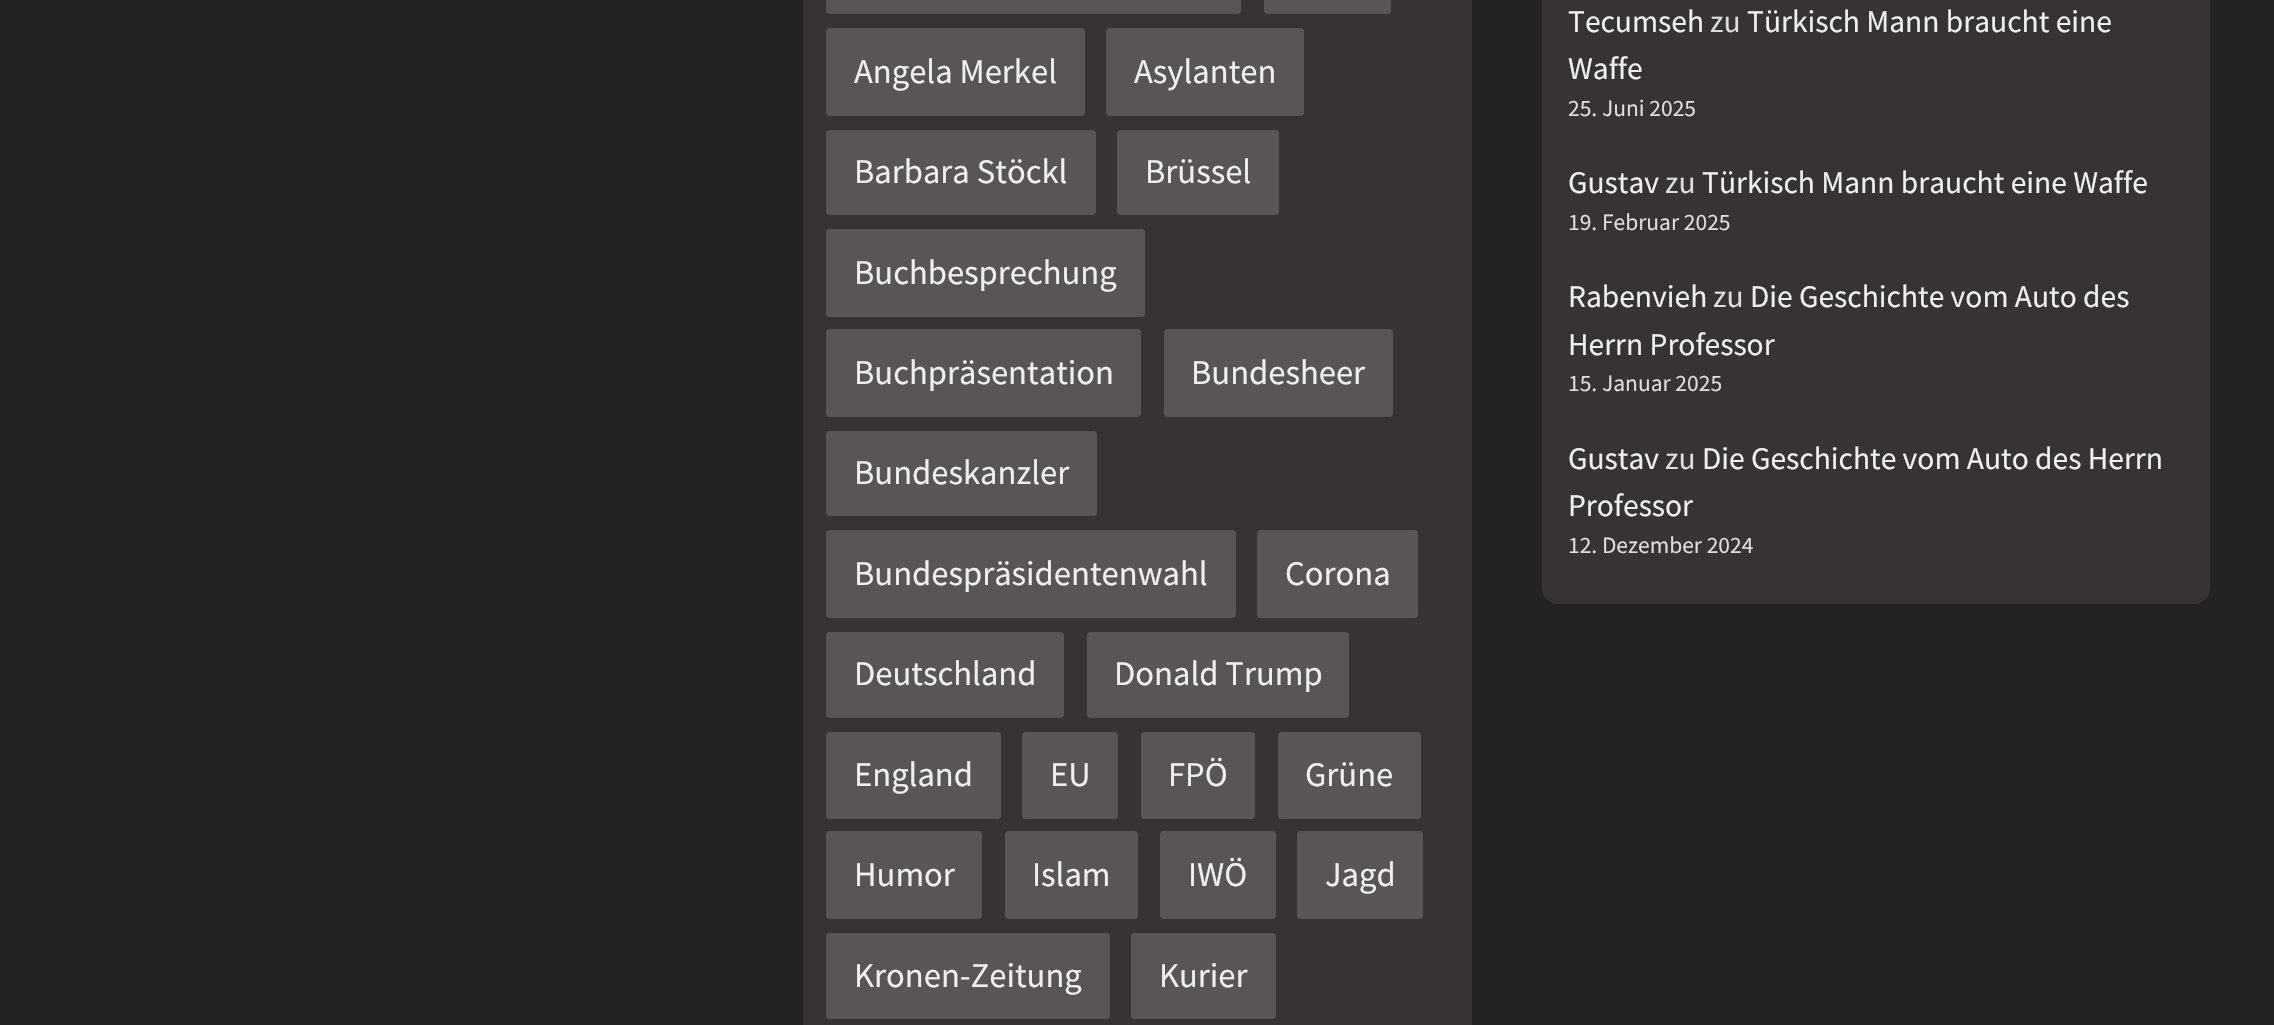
#include "include/core/SkBlurTypes.h"
#include "include/core/SkCanvas.h"
#include "include/core/SkData.h"
#include "include/core/SkFont.h"
#include "include/core/SkFontMgr.h"
#include "include/core/SkImage.h"
#include "include/core/SkMaskFilter.h"
#include "include/core/SkPaint.h"
#include "include/core/SkPathBuilder.h"
#include "include/core/SkTextBlob.h"
#include "include/effects/SkDashPathEffect.h"
#include "include/effects/SkGradientShader.h"
#include "include/utils/SkParsePath.h"

extern sk_sp<SkFontMgr> fontMgr;

void draw(SkCanvas* canvas) {
    SkPaint p;
    p.setAntiAlias(true);
    auto font = [&](const char* family, int weight, float size, bool italic = false) {
        SkFontStyle style(weight, SkFontStyle::kNormal_Width,
            italic ? SkFontStyle::kItalic_Slant : SkFontStyle::kUpright_Slant);
        SkFont result(fontMgr->matchFamilyStyle(family, style), size);
        result.setSubpixel(true);
        return result;
    };
    canvas->clear(0xFF222222);
    p.setColor(0xFF383333);
    canvas->drawRect(SkRect::MakeLTRB(803, 0, 1472, 1025), p);
    p.setColor(0xFF5A5555);
    canvas->drawRoundRect(SkRect::MakeLTRB(826, -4, 1241, 14), 4, 4, p);
    canvas->drawRoundRect(SkRect::MakeLTRB(1264, -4, 1391, 14), 4, 4, p);
    canvas->drawRoundRect(SkRect::MakeLTRB(826, 28, 1085, 116), 4, 4, p);
    auto font1 = font("Source Sans Pro", 400, 34.6f);
    p.setColor(0xFFEEEEEE);
    canvas->drawString("Angela Merkel", 854, 83, font1, p);
    p.setColor(0xFF5A5555);
    canvas->drawRoundRect(SkRect::MakeLTRB(1106, 28, 1304, 116), 4, 4, p);
    p.setColor(0xFFEEEEEE);
    canvas->drawString("Asylanten", 1134, 83, font1, p);
    p.setColor(0xFF5A5555);
    canvas->drawRoundRect(SkRect::MakeLTRB(826, 130, 1096, 215), 4, 4, p);
    p.setColor(0xFFEEEEEE);
    canvas->drawString("Barbara Stöckl", 854, 183, font1, p);
    p.setColor(0xFF5A5555);
    canvas->drawRoundRect(SkRect::MakeLTRB(1117, 130, 1279, 215), 4, 4, p);
    p.setColor(0xFFEEEEEE);
    canvas->drawString("Brüssel", 1145, 183, font1, p);
    p.setColor(0xFF5A5555);
    canvas->drawRoundRect(SkRect::MakeLTRB(826, 229, 1145, 317), 4, 4, p);
    p.setColor(0xFFEEEEEE);
    canvas->drawString("Buchbesprechung", 854, 284, font1, p);
    p.setColor(0xFF5A5555);
    canvas->drawRoundRect(SkRect::MakeLTRB(826, 329, 1141, 417), 4, 4, p);
    p.setColor(0xFFEEEEEE);
    canvas->drawString("Buchpräsentation", 854, 384, font1, p);
    p.setColor(0xFF5A5555);
    canvas->drawRoundRect(SkRect::MakeLTRB(1164, 329, 1393, 417), 4, 4, p);
    p.setColor(0xFFEEEEEE);
    canvas->drawString("Bundesheer", 1191, 384, font1, p);
    p.setColor(0xFF5A5555);
    canvas->drawRoundRect(SkRect::MakeLTRB(826, 431, 1097, 516), 4, 4, p);
    p.setColor(0xFFEEEEEE);
    canvas->drawString("Bundeskanzler", 854, 484, font1, p);
    p.setColor(0xFF5A5555);
    canvas->drawRoundRect(SkRect::MakeLTRB(826, 530, 1236, 618), 4, 4, p);
    p.setColor(0xFFEEEEEE);
    canvas->drawString("Bundespräsidentenwahl", 854, 585, font1, p);
    p.setColor(0xFF5A5555);
    canvas->drawRoundRect(SkRect::MakeLTRB(1257, 530, 1418, 618), 4, 4, p);
    p.setColor(0xFFEEEEEE);
    canvas->drawString("Corona", 1285, 585, font1, p);
    p.setColor(0xFF5A5555);
    canvas->drawRoundRect(SkRect::MakeLTRB(826, 632, 1064, 718), 4, 4, p);
    p.setColor(0xFFEEEEEE);
    canvas->drawString("Deutschland", 854, 685, font1, p);
    p.setColor(0xFF5A5555);
    canvas->drawRoundRect(SkRect::MakeLTRB(1087, 632, 1349, 718), 4, 4, p);
    p.setColor(0xFFEEEEEE);
    canvas->drawString("Donald Trump", 1114, 685, font1, p);
    p.setColor(0xFF5A5555);
    canvas->drawRoundRect(SkRect::MakeLTRB(826, 732, 1001, 819), 4, 4, p);
    p.setColor(0xFFEEEEEE);
    canvas->drawString("England", 854, 786, font1, p);
    p.setColor(0xFF5A5555);
    canvas->drawRoundRect(SkRect::MakeLTRB(1022, 732, 1118, 819), 4, 4, p);
    p.setColor(0xFFEEEEEE);
    canvas->drawString("EU", 1050, 786, font1, p);
    p.setColor(0xFF5A5555);
    canvas->drawRoundRect(SkRect::MakeLTRB(1141, 732, 1255, 819), 4, 4, p);
    p.setColor(0xFFEEEEEE);
    canvas->drawString("FPÖ", 1168, 786, font1, p);
    p.setColor(0xFF5A5555);
    canvas->drawRoundRect(SkRect::MakeLTRB(1278, 732, 1421, 819), 4, 4, p);
    p.setColor(0xFFEEEEEE);
    canvas->drawString("Grüne", 1305, 786, font1, p);
    p.setColor(0xFF5A5555);
    canvas->drawRoundRect(SkRect::MakeLTRB(826, 831, 982, 919), 4, 4, p);
    p.setColor(0xFFEEEEEE);
    canvas->drawString("Humor", 854, 886, font1, p);
    p.setColor(0xFF5A5555);
    canvas->drawRoundRect(SkRect::MakeLTRB(1005, 831, 1138, 919), 4, 4, p);
    p.setColor(0xFFEEEEEE);
    canvas->drawString("Islam", 1032, 886, font1, p);
    p.setColor(0xFF5A5555);
    canvas->drawRoundRect(SkRect::MakeLTRB(1160, 831, 1276, 919), 4, 4, p);
    p.setColor(0xFFEEEEEE);
    canvas->drawString("IWÖ", 1188, 886, font1, p);
    p.setColor(0xFF5A5555);
    canvas->drawRoundRect(SkRect::MakeLTRB(1297, 831, 1423, 919), 4, 4, p);
    p.setColor(0xFFEEEEEE);
    canvas->drawString("Jagd", 1325, 886, font1, p);
    p.setColor(0xFF5A5555);
    canvas->drawRoundRect(SkRect::MakeLTRB(826, 933, 1110, 1019), 4, 4, p);
    p.setColor(0xFFEEEEEE);
    canvas->drawString("Kronen-Zeitung", 854, 987, font1, p);
    p.setColor(0xFF5A5555);
    canvas->drawRoundRect(SkRect::MakeLTRB(1131, 933, 1276, 1019), 4, 4, p);
    p.setColor(0xFFEEEEEE);
    canvas->drawString("Kurier", 1159, 987, font1, p);
    p.setColor(0xFF383333);
    canvas->drawRoundRect(SkRect::MakeLTRB(1542, -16, 2210, 604), 16, 16, p);
    auto font2 = font("Source Sans Pro", 400, 31.5f);
    p.setColor(0xFFEEEEEE);
    canvas->drawString("Tecumseh", 1568, 32, font2, p);
    p.setColor(0xFFDDDDDD);
    canvas->drawString("zu", 1710, 32, font2, p);
    p.setColor(0xFFEEEEEE);
    canvas->drawString("Türkisch Mann braucht eine", 1747, 32, font2, p);
    canvas->drawString("Waffe", 1568, 79, font2, p);
    auto font3 = font("Source Sans Pro", 400, 23.5f);
    p.setColor(0xFFDDDDDD);
    canvas->drawString("25. Juni 2025", 1568, 116, font3, p);
    p.setColor(0xFFEEEEEE);
    canvas->drawString("Gustav", 1568, 193, font2, p);
    p.setColor(0xFFDDDDDD);
    canvas->drawString("zu", 1665, 193, font2, p);
    p.setColor(0xFFEEEEEE);
    canvas->drawString("Türkisch Mann braucht eine Waffe", 1702, 193, font2, p);
    p.setColor(0xFFDDDDDD);
    canvas->drawString("19. Februar 2025", 1568, 230, font3, p);
    p.setColor(0xFFEEEEEE);
    canvas->drawString("Rabenvieh", 1568, 307, font2, p);
    p.setColor(0xFFDDDDDD);
    canvas->drawString("zu", 1713, 307, font2, p);
    p.setColor(0xFFEEEEEE);
    canvas->drawString("Die Geschichte vom Auto des", 1750, 307, font2, p);
    canvas->drawString("Herrn Professor", 1568, 355, font2, p);
    p.setColor(0xFFDDDDDD);
    canvas->drawString("15. Januar 2025", 1568, 391, font3, p);
    p.setColor(0xFFEEEEEE);
    canvas->drawString("Gustav", 1568, 469, font2, p);
    p.setColor(0xFFDDDDDD);
    canvas->drawString("zu", 1665, 469, font2, p);
    p.setColor(0xFFEEEEEE);
    canvas->drawString("Die Geschichte vom Auto des Herrn", 1702, 469, font2, p);
    canvas->drawString("Professor", 1568, 516, font2, p);
    p.setColor(0xFFDDDDDD);
    canvas->drawString("12. Dezember 2024", 1568, 553, font3, p);
}
